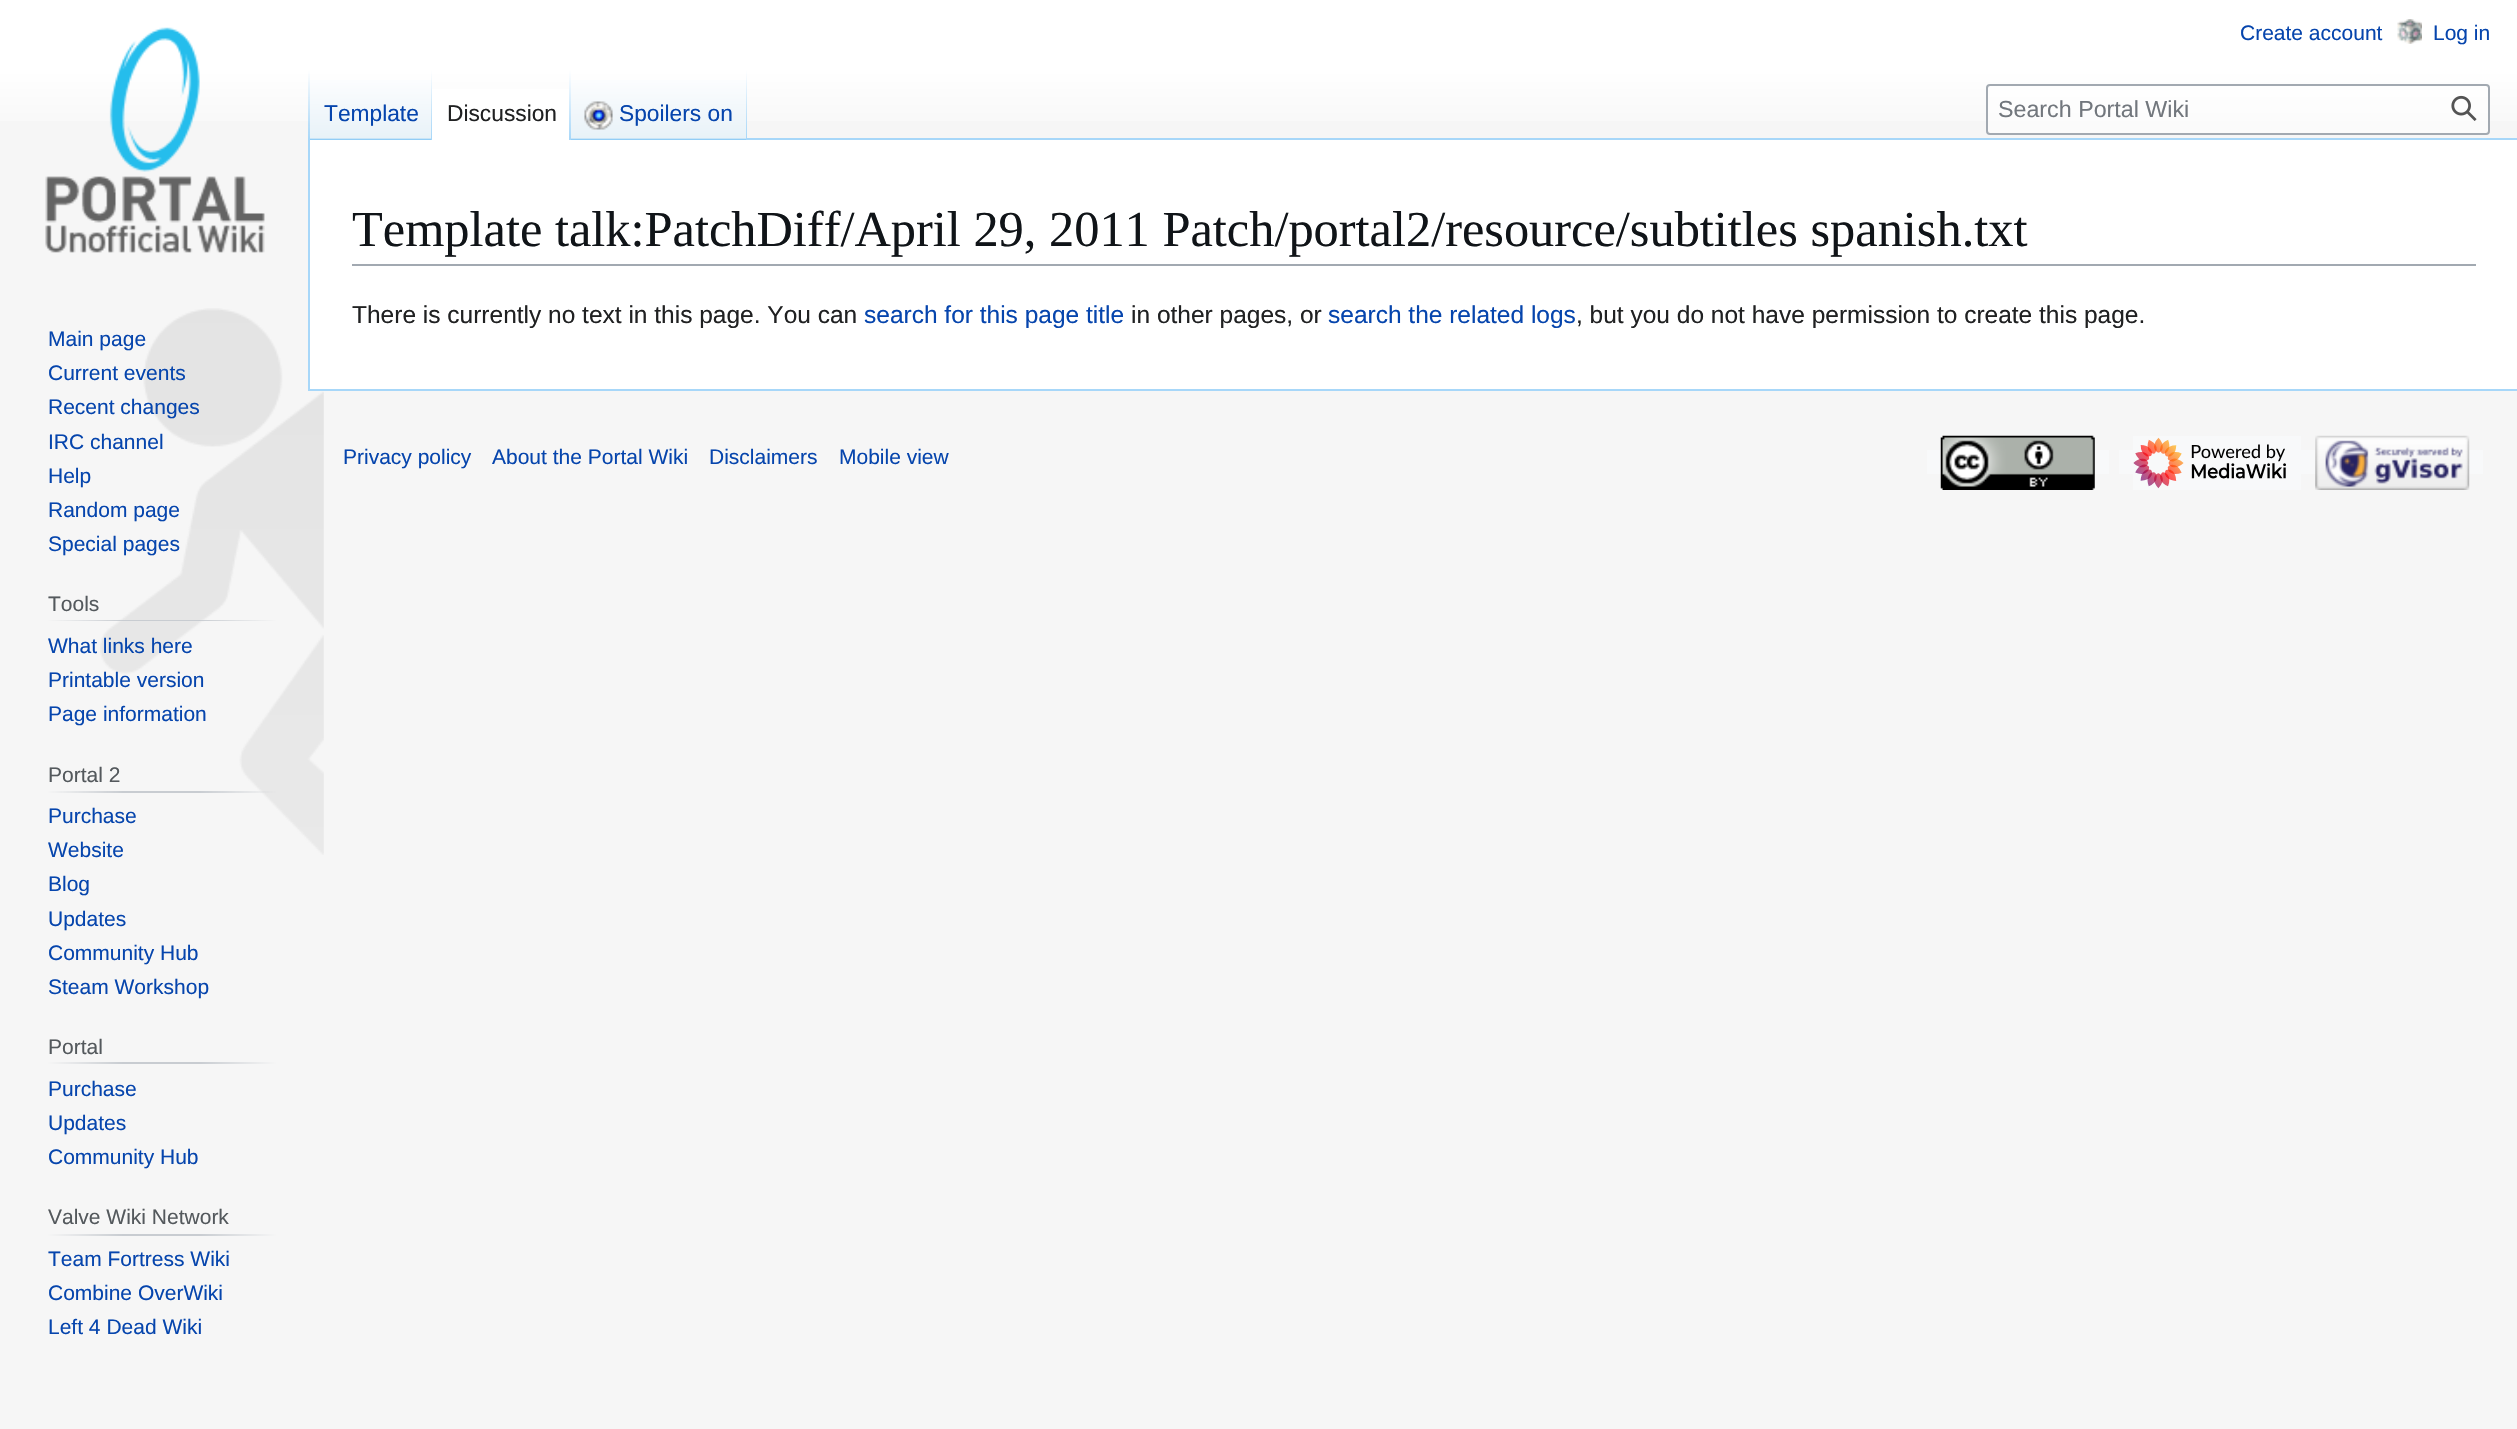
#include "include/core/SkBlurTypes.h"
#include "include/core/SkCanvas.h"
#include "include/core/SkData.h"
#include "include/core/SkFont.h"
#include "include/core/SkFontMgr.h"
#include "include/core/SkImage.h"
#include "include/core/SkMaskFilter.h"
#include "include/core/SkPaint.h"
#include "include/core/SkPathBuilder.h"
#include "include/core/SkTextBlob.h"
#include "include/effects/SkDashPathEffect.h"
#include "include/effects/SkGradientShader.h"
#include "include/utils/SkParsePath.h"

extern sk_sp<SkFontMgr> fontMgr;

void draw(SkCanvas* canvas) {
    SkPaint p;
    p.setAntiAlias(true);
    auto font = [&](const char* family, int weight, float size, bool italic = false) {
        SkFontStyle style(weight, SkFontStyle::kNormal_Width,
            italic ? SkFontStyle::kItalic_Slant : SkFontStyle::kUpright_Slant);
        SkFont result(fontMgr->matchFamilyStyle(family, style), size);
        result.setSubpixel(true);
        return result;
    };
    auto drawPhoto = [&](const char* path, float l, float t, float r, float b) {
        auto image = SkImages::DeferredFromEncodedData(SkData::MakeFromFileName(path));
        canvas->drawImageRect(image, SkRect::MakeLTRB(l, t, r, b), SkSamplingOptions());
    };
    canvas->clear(0xFFF6F6F6);
    {
        const SkColor colors[] = {0xFFFFFFFF, 0xFFF6F6F6};
        const float stops[] = {0.5f, 1};
        const SkPoint ends[] = {{1259, 0}, {1259, 140}};
        p.setShader(SkGradientShader::MakeLinear(ends, colors, stops, 2, SkTileMode::kClamp));
        p.setAlpha(255);
    }
    canvas->drawRect(SkRect::MakeLTRB(0, 0, 2517, 121), p);
    auto font1 = font("Liberation Sans", 400, 21);
    p.setShader(nullptr);
    p.setColor(0xFF0645AD);
    canvas->drawString("Create account", 2240, 40, font1, p);
    drawPhoto("media/1.png", 2397, 19, 2422, 44);
    canvas->drawString("Log in", 2433, 40, font1, p);
    drawPhoto("media/5.png", 100, 308, 324, 855);
    p.setColor(0xFFA7D7F9);
    canvas->drawRect(SkRect::MakeLTRB(308, 389, 2517, 391), p);
    canvas->drawRect(SkRect::MakeLTRB(308, 138, 310, 390), p);
    {
        const SkColor colors[] = {0x00A7D7F9, 0xFFA7D7F9};
        const float stops[] = {0, 1};
        const SkPoint ends[] = {{309, 70}, {309, 140}};
        p.setShader(SkGradientShader::MakeLinear(ends, colors, stops, 2, SkTileMode::kClamp));
        p.setAlpha(255);
    }
    canvas->drawRect(SkRect::MakeLTRB(308, 70, 310, 140), p);
    {
        const SkColor colors[] = {0xFF77C1F6, 0xFFE8F2F8, 0xFFFFFFFF};
        const float stops[] = {0, 0.03f, 1};
        const SkPoint ends[] = {{371, 140}, {371, 70}};
        p.setShader(SkGradientShader::MakeLinear(ends, colors, stops, 3, SkTileMode::kClamp));
        p.setAlpha(255);
    }
    canvas->drawRect(SkRect::MakeLTRB(310, 80, 432, 140), p);
    {
        const SkColor colors[] = {0x00A7D7F9, 0xFFA7D7F9};
        const float stops[] = {0, 1};
        const SkPoint ends[] = {{431, 70}, {431, 140}};
        p.setShader(SkGradientShader::MakeLinear(ends, colors, stops, 2, SkTileMode::kClamp));
        p.setAlpha(255);
    }
    canvas->drawRect(SkRect::MakeLTRB(431, 70, 432, 140), p);
    auto font2 = font("Liberation Sans", 400, 22.75f);
    p.setShader(nullptr);
    p.setColor(0xFF0645AD);
    canvas->drawString("Template", 324, 121, font2, p);
    p.setColor(0xFFFFFFFF);
    canvas->drawRect(SkRect::MakeLTRB(432, 89, 569, 140), p);
    {
        const SkColor colors[] = {0xFFFFFFFF, 0xFFA7D7F9};
        const float stops[] = {0, 1};
        const SkPoint ends[] = {{570, 70}, {570, 140}};
        p.setShader(SkGradientShader::MakeLinear(ends, colors, stops, 2, SkTileMode::kClamp));
        p.setAlpha(255);
    }
    canvas->drawRect(SkRect::MakeLTRB(569, 70, 571, 140), p);
    p.setShader(nullptr);
    p.setColor(0xFF202122);
    canvas->drawString("Discussion", 447, 121, font2, p);
    {
        const SkColor colors[] = {0xFF77C1F6, 0xFFE8F2F8, 0xFFFFFFFF};
        const float stops[] = {0, 0.03f, 1};
        const SkPoint ends[] = {{659, 140}, {659, 70}};
        p.setShader(SkGradientShader::MakeLinear(ends, colors, stops, 3, SkTileMode::kClamp));
        p.setAlpha(255);
    }
    canvas->drawRect(SkRect::MakeLTRB(571, 80, 747, 140), p);
    {
        const SkColor colors[] = {0x00A7D7F9, 0xFFA7D7F9};
        const float stops[] = {0, 1};
        const SkPoint ends[] = {{746, 70}, {746, 140}};
        p.setShader(SkGradientShader::MakeLinear(ends, colors, stops, 2, SkTileMode::kClamp));
        p.setAlpha(255);
    }
    canvas->drawRect(SkRect::MakeLTRB(746, 70, 747, 140), p);
    drawPhoto("media/2.png", 584, 101, 613, 130);
    p.setShader(nullptr);
    p.setColor(0xFF0645AD);
    canvas->drawString("Spoilers on", 619, 121, font2, p);
    p.setColor(0x80FFFFFF);
    canvas->drawRoundRect(SkRect::MakeLTRB(1987, 85, 2489, 134), 3, 3, p);
    p.setStyle(SkPaint::kStroke_Style);
    p.setStrokeWidth(2);
    p.setColor(0xFFA2A9B1);
    canvas->drawRoundRect(SkRect::MakeLTRB(1987, 85, 2489, 134), 3, 3, p);
    auto font3 = font("Liberation Sans", 400, 23.25f);
    p.setStyle(SkPaint::kFill_Style);
    p.setColor(0xFF72777D);
    canvas->drawString("Search Portal Wiki", 1998, 117, font3, p);
    drawPhoto("media/3.png", 2451, 95, 2477, 121);
    drawPhoto("media/4.png", 45, 27, 265, 253);
    p.setColor(0xFF0645AD);
    {
        const struct { const char* s; float x, y; } items[] = {
            {"Main page", 48, 346},
            {"Current events", 48, 380},
            {"Recent changes", 48, 414},
            {"IRC channel", 48, 449},
            {"Help", 48, 483},
            {"Random page", 48, 517},
            {"Special pages", 48, 551},
        };
        for (auto [s, x, y] : items) {
            canvas->drawString(s, x, y, font1, p);
        }
    }
    {
        const SkColor colors[] = {0x00C8CCD1, 0xFFC8CCD1, 0xFFC8CCD1, 0x00C8CCD1};
        const float stops[] = {0, 0.33f, 0.66f, 1};
        const SkPoint ends[] = {{47, 620}, {277, 620}};
        p.setShader(SkGradientShader::MakeLinear(ends, colors, stops, 4, SkTileMode::kClamp));
        p.setAlpha(255);
    }
    canvas->drawRect(SkRect::MakeLTRB(47, 620, 277, 621), p);
    p.setShader(nullptr);
    p.setColor(0xFF54595D);
    canvas->drawString("Tools", 48, 611, font1, p);
    p.setColor(0xFF0645AD);
    {
        const struct { const char* s; float x, y; } items[] = {
            {"What links here", 48, 653},
            {"Printable version", 48, 687},
            {"Page information", 48, 721},
        };
        for (auto [s, x, y] : items) {
            canvas->drawString(s, x, y, font1, p);
        }
    }
    {
        const SkColor colors[] = {0x00C8CCD1, 0xFFC8CCD1, 0xFFC8CCD1, 0x00C8CCD1};
        const float stops[] = {0, 0.33f, 0.66f, 1};
        const SkPoint ends[] = {{47, 792}, {277, 792}};
        p.setShader(SkGradientShader::MakeLinear(ends, colors, stops, 4, SkTileMode::kClamp));
        p.setAlpha(255);
    }
    canvas->drawRect(SkRect::MakeLTRB(47, 791, 277, 793), p);
    p.setShader(nullptr);
    p.setColor(0xFF54595D);
    canvas->drawString("Portal 2", 48, 782, font1, p);
    p.setColor(0xFF0645AD);
    {
        const struct { const char* s; float x, y; } items[] = {
            {"Purchase", 48, 823},
            {"Website", 48, 857},
            {"Blog", 48, 891},
            {"Updates", 48, 926},
            {"Community Hub", 48, 960},
            {"Steam Workshop", 48, 994},
        };
        for (auto [s, x, y] : items) {
            canvas->drawString(s, x, y, font1, p);
        }
    }
    {
        const SkColor colors[] = {0xFFF6F6F6, 0xFFC8CCD1, 0xFFC8CCD1, 0xFFF6F6F6};
        const float stops[] = {0, 0.33f, 0.66f, 1};
        const SkPoint ends[] = {{47, 1063}, {277, 1063}};
        p.setShader(SkGradientShader::MakeLinear(ends, colors, stops, 4, SkTileMode::kClamp));
        p.setAlpha(255);
    }
    canvas->drawRect(SkRect::MakeLTRB(47, 1062, 277, 1064), p);
    p.setShader(nullptr);
    p.setColor(0xFF54595D);
    canvas->drawString("Portal", 48, 1054, font1, p);
    p.setColor(0xFF0645AD);
    {
        const struct { const char* s; float x, y; } items[] = {
            {"Purchase", 48, 1096},
            {"Updates", 48, 1130},
            {"Community Hub", 48, 1164},
        };
        for (auto [s, x, y] : items) {
            canvas->drawString(s, x, y, font1, p);
        }
    }
    {
        const SkColor colors[] = {0xFFF6F6F6, 0xFFC8CCD1, 0xFFC8CCD1, 0xFFF6F6F6};
        const float stops[] = {0, 0.33f, 0.66f, 1};
        const SkPoint ends[] = {{47, 1235}, {277, 1235}};
        p.setShader(SkGradientShader::MakeLinear(ends, colors, stops, 4, SkTileMode::kClamp));
        p.setAlpha(255);
    }
    canvas->drawRect(SkRect::MakeLTRB(47, 1234, 277, 1236), p);
    p.setShader(nullptr);
    p.setColor(0xFF54595D);
    canvas->drawString("Valve Wiki Network", 48, 1224, font1, p);
    p.setColor(0xFF0645AD);
    {
        const struct { const char* s; float x, y; } items[] = {
            {"Team Fortress Wiki", 48, 1266},
            {"Combine OverWiki", 48, 1300},
            {"Left 4 Dead Wiki", 48, 1334},
        };
        for (auto [s, x, y] : items) {
            canvas->drawString(s, x, y, font1, p);
        }
    }
    {
        const struct { float l, t, r, b; SkColor color; } items[] = {
            {310, 140, 2517, 389, 0xFFFFFFFF},
            {747, 138, 2517, 140, 0xFFA7D7F9},
            {352, 264, 2476, 266, 0xFFA2A9B1},
        };
        for (auto [l, t, r, b, color] : items) {
            p.setColor(color);
            canvas->drawRect(SkRect::MakeLTRB(l, t, r, b), p);
        }
    }
    auto font4 = font("Liberation Serif", 400, 50.4f);
    p.setColor(0xFF101418);
    canvas->drawString("Template talk:PatchDiff/April 29, 2011 Patch/portal2/resource/subtitles spanish.txt", 352, 246, font4, p);
    auto font5 = font("Liberation Sans", 400, 24.5f);
    p.setColor(0xFF202122);
    canvas->drawString("There is currently no text in this page. You can", 352, 323, font5, p);
    p.setColor(0xFF0645AD);
    canvas->drawString("search for this page title", 864, 323, font5, p);
    p.setColor(0xFF202122);
    canvas->drawString("in other pages, or", 1131, 323, font5, p);
    p.setColor(0xFF0645AD);
    canvas->drawString("search the related logs", 1328, 323, font5, p);
    p.setColor(0xFF202122);
    canvas->drawString(", but you do not have permission to create this page.", 1576, 323, font5, p);
    p.setColor(0xFF0645AD);
    {
        const struct { const char* s; float x, y; } items[] = {
            {"Privacy policy", 343, 464},
            {"About the Portal Wiki", 492, 464},
            {"Disclaimers", 709, 464},
            {"Mobile view", 839, 464},
        };
        for (auto [s, x, y] : items) {
            canvas->drawString(s, x, y, font1, p);
        }
    }
    p.setColor(0xFFF8F9FA);
    canvas->drawRect(SkRect::MakeLTRB(1927, 450, 2109, 474), p);
    drawPhoto("media/6.png", 1940, 435, 2095, 490);
    canvas->drawRect(SkRect::MakeLTRB(2133, 436, 2301, 490), p);
    canvas->drawRect(SkRect::MakeLTRB(2301, 450, 2483, 474), p);
    drawPhoto("media/7.png", 2315, 435, 2470, 490);
    canvas->drawRect(SkRect::MakeLTRB(2119, 450, 2133, 474), p);
    drawPhoto("media/8.png", 2133, 437, 2286, 489);
}
